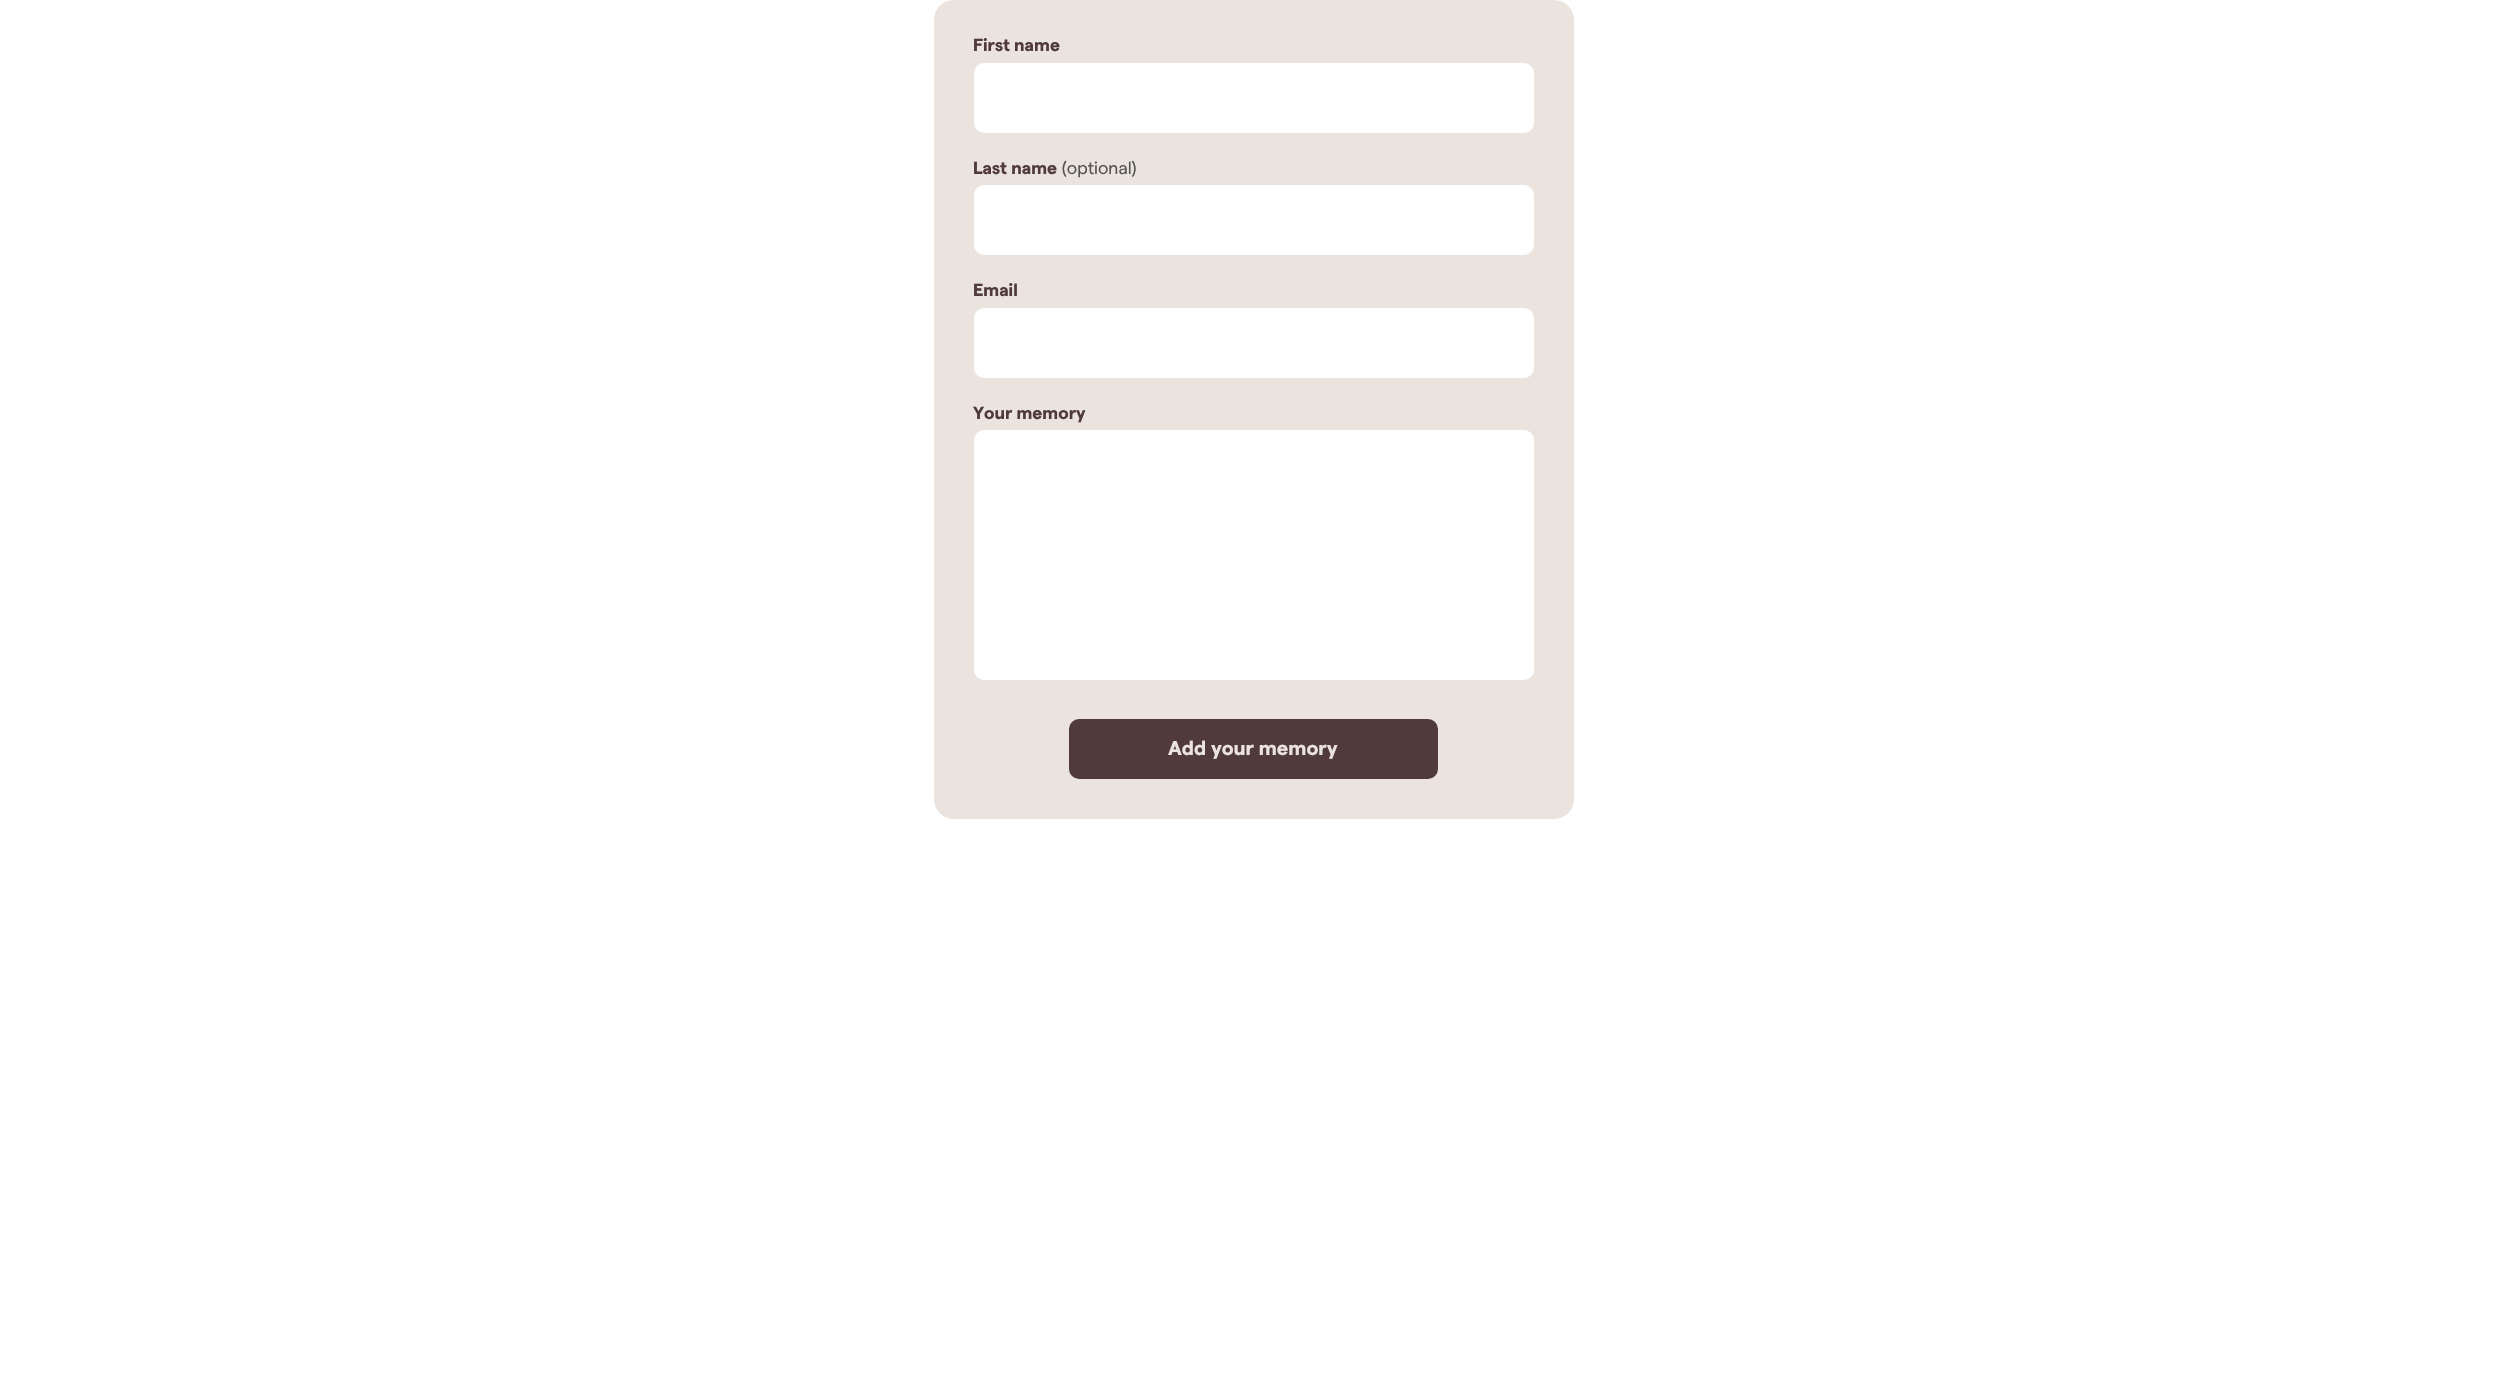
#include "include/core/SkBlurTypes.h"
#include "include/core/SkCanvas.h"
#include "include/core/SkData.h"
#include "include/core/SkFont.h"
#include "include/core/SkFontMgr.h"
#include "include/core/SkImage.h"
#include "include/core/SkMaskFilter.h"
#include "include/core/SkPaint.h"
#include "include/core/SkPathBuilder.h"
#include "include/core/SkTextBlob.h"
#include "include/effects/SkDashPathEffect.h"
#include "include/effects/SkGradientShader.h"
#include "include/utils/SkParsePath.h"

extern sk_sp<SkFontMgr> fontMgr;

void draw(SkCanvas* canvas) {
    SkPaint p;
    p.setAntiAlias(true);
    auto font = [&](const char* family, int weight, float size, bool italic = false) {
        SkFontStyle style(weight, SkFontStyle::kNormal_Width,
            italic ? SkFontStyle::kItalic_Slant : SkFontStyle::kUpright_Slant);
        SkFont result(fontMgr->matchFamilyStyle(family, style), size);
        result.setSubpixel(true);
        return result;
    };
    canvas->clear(0xFFFFFFFF);
    p.setColor(0xFFEBE4DE);
    canvas->drawRoundRect(SkRect::MakeLTRB(934, 0, 1574, 819), 20, 20, p);
    auto font1 = font("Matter", 700, 17.5f);
    p.setColor(0xFF503A3A);
    canvas->drawString("First name", 973, 51, font1, p);
    p.setColor(0xFFFFFFFF);
    canvas->drawRoundRect(SkRect::MakeLTRB(974, 63, 1534, 133), 10, 10, p);
    p.setColor(0xFF503A3A);
    canvas->drawString("Last name", 973, 174, font1, p);
    auto font2 = font("Matter", 400, 17.5f);
    p.setColor(0xFF525252);
    canvas->drawString("(optional)", 1062, 174, font2, p);
    p.setColor(0xFFFFFFFF);
    canvas->drawRoundRect(SkRect::MakeLTRB(974, 185, 1534, 255), 10, 10, p);
    p.setColor(0xFF503A3A);
    canvas->drawString("Email", 973, 296, font1, p);
    p.setColor(0xFFFFFFFF);
    canvas->drawRoundRect(SkRect::MakeLTRB(974, 308, 1534, 378), 10, 10, p);
    p.setColor(0xFF503A3A);
    canvas->drawString("Your memory", 973, 419, font1, p);
    p.setColor(0xFFFFFFFF);
    canvas->drawRoundRect(SkRect::MakeLTRB(974, 430, 1534, 680), 10, 10, p);
    p.setColor(0xFF503A3A);
    canvas->drawRoundRect(SkRect::MakeLTRB(1069, 719, 1438, 779), 10, 10, p);
    auto font3 = font("Matter", 700, 20);
    p.setColor(0xFFEBE4DE);
    canvas->drawString("Add your memory", 1168, 755, font3, p);
}
